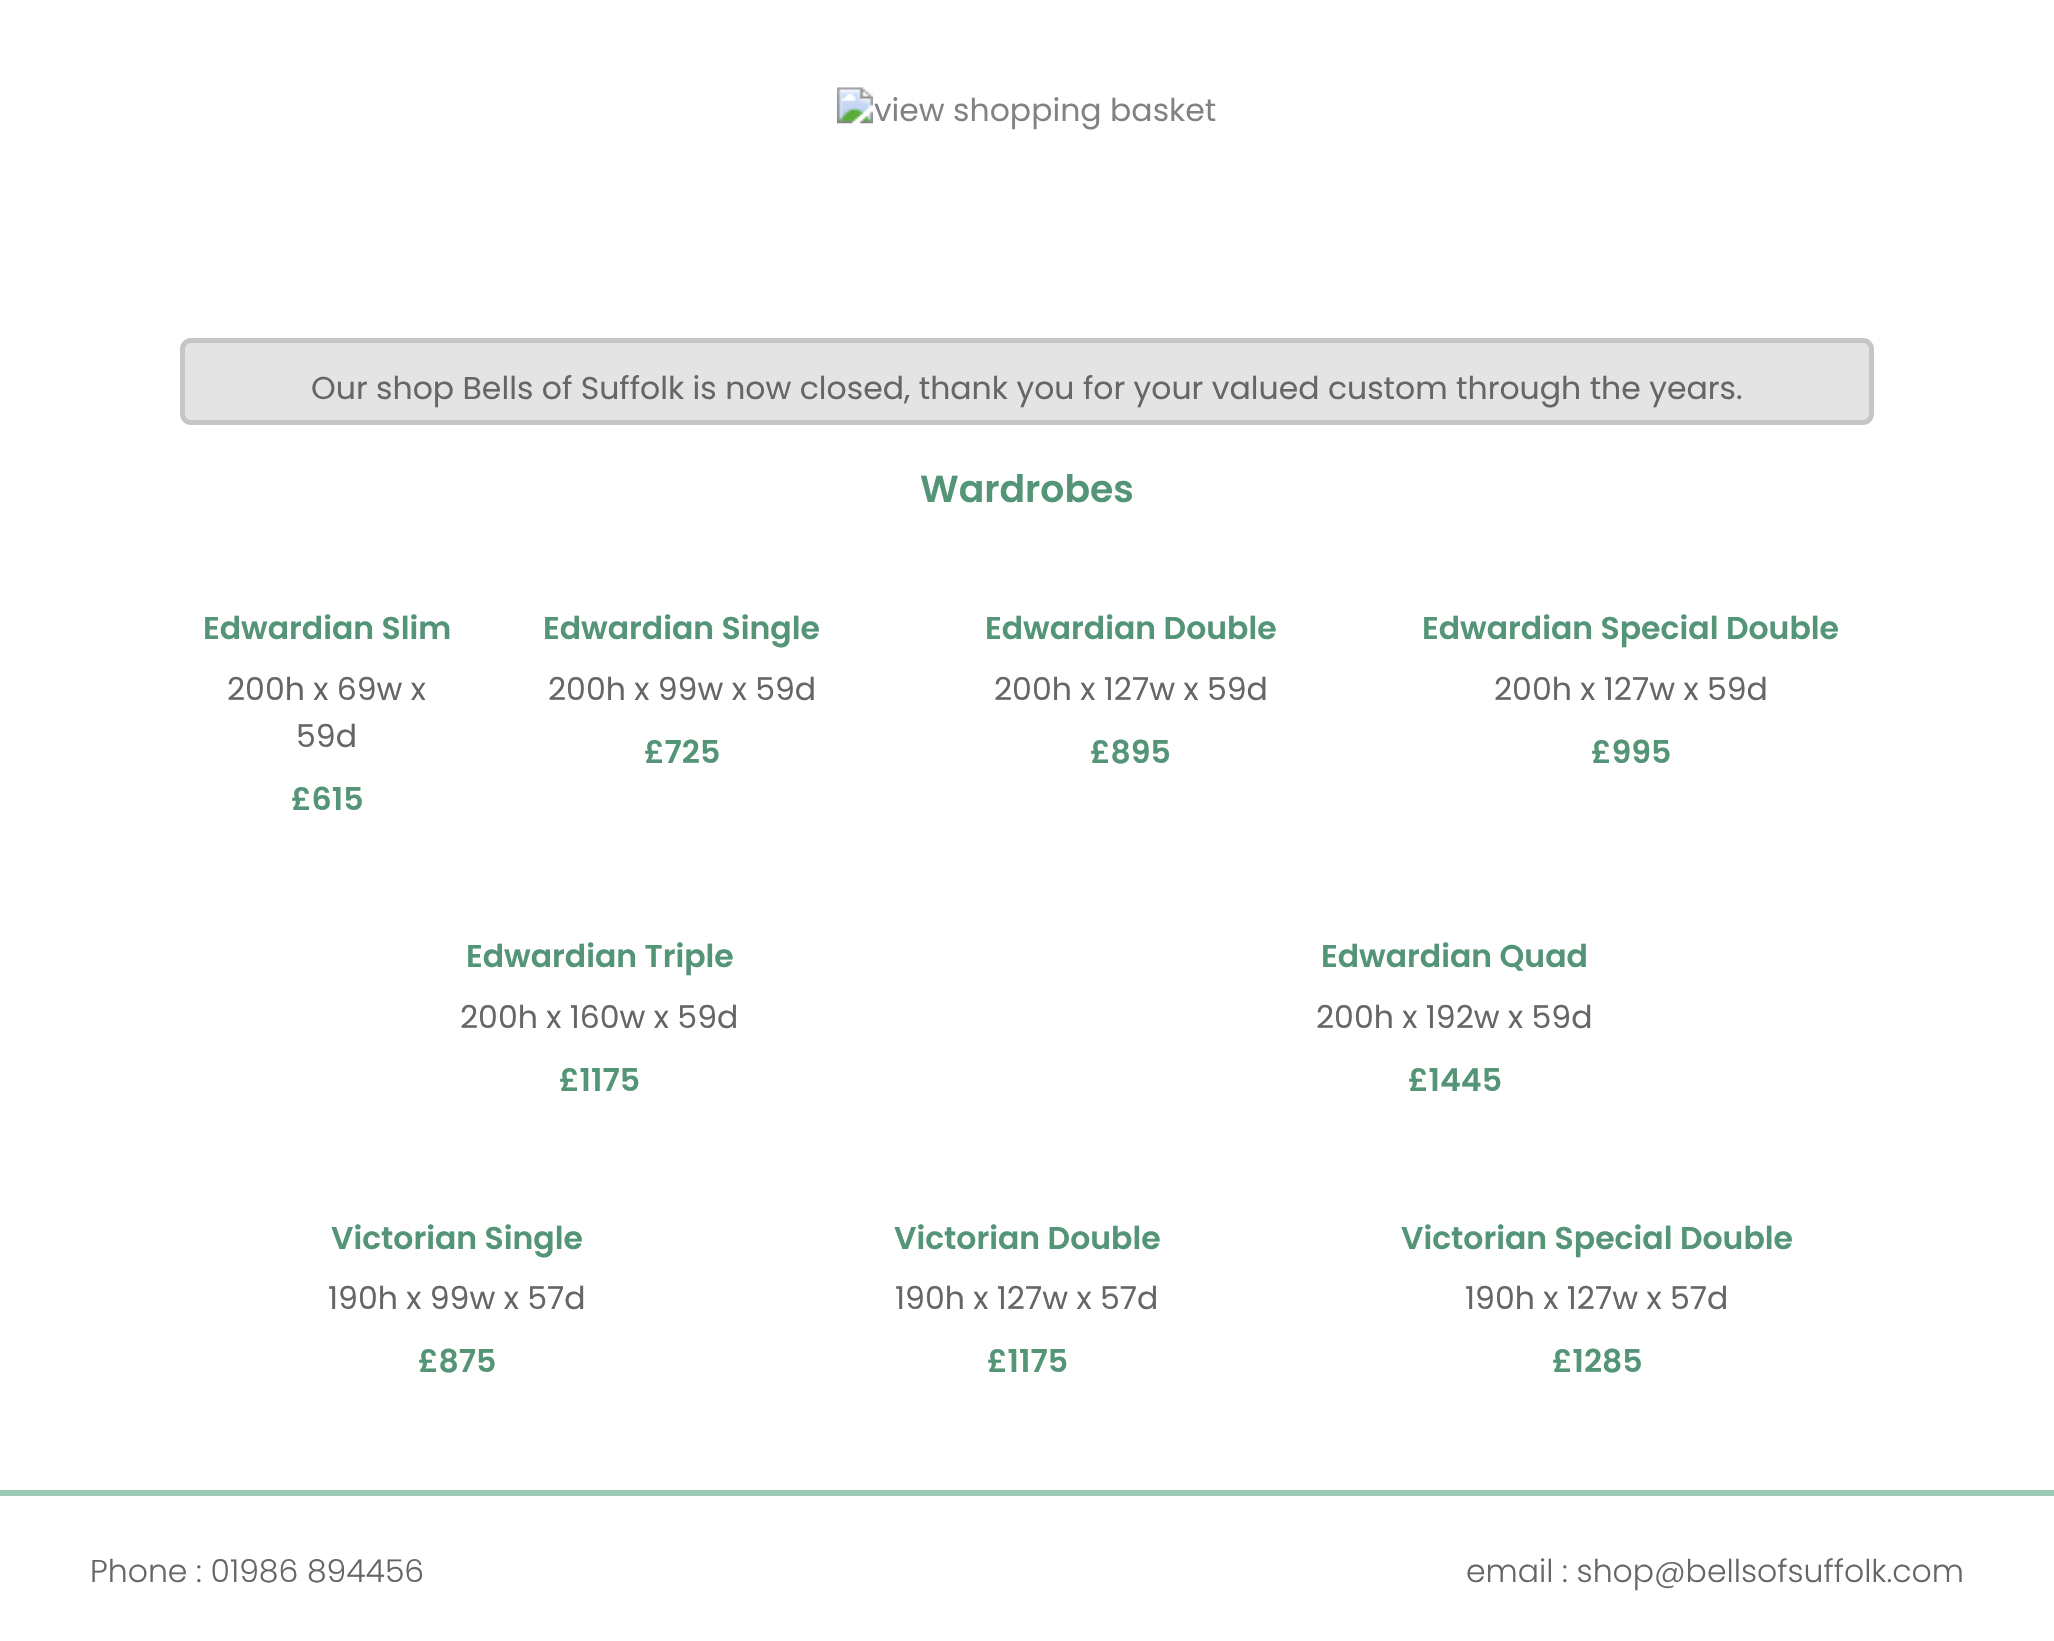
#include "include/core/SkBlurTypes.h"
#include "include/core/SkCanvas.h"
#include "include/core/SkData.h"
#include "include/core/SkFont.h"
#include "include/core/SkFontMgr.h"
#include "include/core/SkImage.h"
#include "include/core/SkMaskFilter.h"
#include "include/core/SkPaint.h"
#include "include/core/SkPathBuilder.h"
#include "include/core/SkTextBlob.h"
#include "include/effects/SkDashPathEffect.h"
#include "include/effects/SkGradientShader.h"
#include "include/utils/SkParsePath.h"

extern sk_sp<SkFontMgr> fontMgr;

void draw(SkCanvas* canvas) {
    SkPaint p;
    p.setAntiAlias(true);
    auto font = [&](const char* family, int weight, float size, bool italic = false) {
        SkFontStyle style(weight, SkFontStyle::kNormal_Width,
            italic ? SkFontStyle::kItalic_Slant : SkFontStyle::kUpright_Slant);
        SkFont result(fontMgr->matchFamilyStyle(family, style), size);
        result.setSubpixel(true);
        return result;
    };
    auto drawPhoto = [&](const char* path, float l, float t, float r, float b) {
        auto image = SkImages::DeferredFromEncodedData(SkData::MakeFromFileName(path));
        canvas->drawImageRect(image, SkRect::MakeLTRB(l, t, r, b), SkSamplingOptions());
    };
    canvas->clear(0xFFFFFFFF);
    drawPhoto("media/1.png", 837, 87, 1216, 130);
    p.setColor(0xFFE4E4E4);
    canvas->drawRoundRect(SkRect::MakeLTRB(182.5f, 340.5f, 1871.5f, 422.5f), 8.5f, 8.5f, p);
    p.setStyle(SkPaint::kStroke_Style);
    p.setStrokeWidth(5);
    p.setColor(0xFFC6C6C6);
    canvas->drawRoundRect(SkRect::MakeLTRB(182.5f, 340.5f, 1871.5f, 422.5f), 8.5f, 8.5f, p);
    auto font1 = font("Poppins", 400, 31.5f);
    p.setStyle(SkPaint::kFill_Style);
    p.setColor(0xFF666666);
    canvas->drawString("Our shop Bells of Suffolk is now closed, thank you for your valued custom through the years.", 311, 399, font1, p);
    auto font2 = font("Poppins", 600, 37.75f);
    p.setColor(0xFF549477);
    canvas->drawString("Wardrobes", 920, 502, font2, p);
    auto font3 = font("Poppins", 600, 31.5f);
    canvas->drawString("Edwardian Slim", 203, 639, font3, p);
    p.setColor(0xFF666666);
    canvas->drawString("200h x 69w x", 227, 700, font1, p);
    canvas->drawString("59d", 296, 747, font1, p);
    p.setColor(0xFF549477);
    canvas->drawString("£615", 291, 810, font3, p);
    canvas->drawString("Edwardian Single", 543, 639, font3, p);
    p.setColor(0xFF666666);
    canvas->drawString("200h x 99w x 59d", 548, 700, font1, p);
    p.setColor(0xFF549477);
    canvas->drawString("£725", 644, 763, font3, p);
    canvas->drawString("Edwardian Double", 985, 639, font3, p);
    p.setColor(0xFF666666);
    canvas->drawString("200h x 127w x 59d", 994, 700, font1, p);
    p.setColor(0xFF549477);
    canvas->drawString("£895", 1090, 763, font3, p);
    canvas->drawString("Edwardian Special Double", 1422, 639, font3, p);
    p.setColor(0xFF666666);
    canvas->drawString("200h x 127w x 59d", 1494, 700, font1, p);
    p.setColor(0xFF549477);
    canvas->drawString("£995", 1591, 763, font3, p);
    canvas->drawString("Edwardian Triple", 466, 967, font3, p);
    p.setColor(0xFF666666);
    canvas->drawString("200h x 160w x 59d", 460, 1028, font1, p);
    p.setColor(0xFF549477);
    canvas->drawString("£1175", 559, 1091, font3, p);
    canvas->drawString("Edwardian Quad", 1321, 967, font3, p);
    p.setColor(0xFF666666);
    canvas->drawString("200h x 192w x 59d", 1316, 1028, font1, p);
    p.setColor(0xFF549477);
    canvas->drawString("£1445", 1408, 1091, font3, p);
    canvas->drawString("Victorian Single", 331, 1249, font3, p);
    p.setColor(0xFF666666);
    canvas->drawString("190h x 99w x 57d", 328, 1309, font1, p);
    p.setColor(0xFF549477);
    canvas->drawString("£875", 418, 1372, font3, p);
    canvas->drawString("Victorian Double", 894, 1249, font3, p);
    p.setColor(0xFF666666);
    canvas->drawString("190h x 127w x 57d", 895, 1309, font1, p);
    p.setColor(0xFF549477);
    canvas->drawString("£1175", 987, 1372, font3, p);
    canvas->drawString("Victorian Special Double", 1401, 1249, font3, p);
    p.setColor(0xFF666666);
    canvas->drawString("190h x 127w x 57d", 1465, 1309, font1, p);
    p.setColor(0xFF549477);
    canvas->drawString("£1285", 1552, 1372, font3, p);
    p.setColor(0xFF9DC8B5);
    canvas->drawRect(SkRect::MakeLTRB(0, 1490, 2054, 1496), p);
    auto font4 = font("Poppins", 300, 31.5f);
    p.setColor(0xFF666666);
    canvas->drawString("Phone : 01986 894456", 90, 1582, font4, p);
    canvas->drawString("email : shop@bellsofsuffolk.com", 1466, 1582, font4, p);
}
